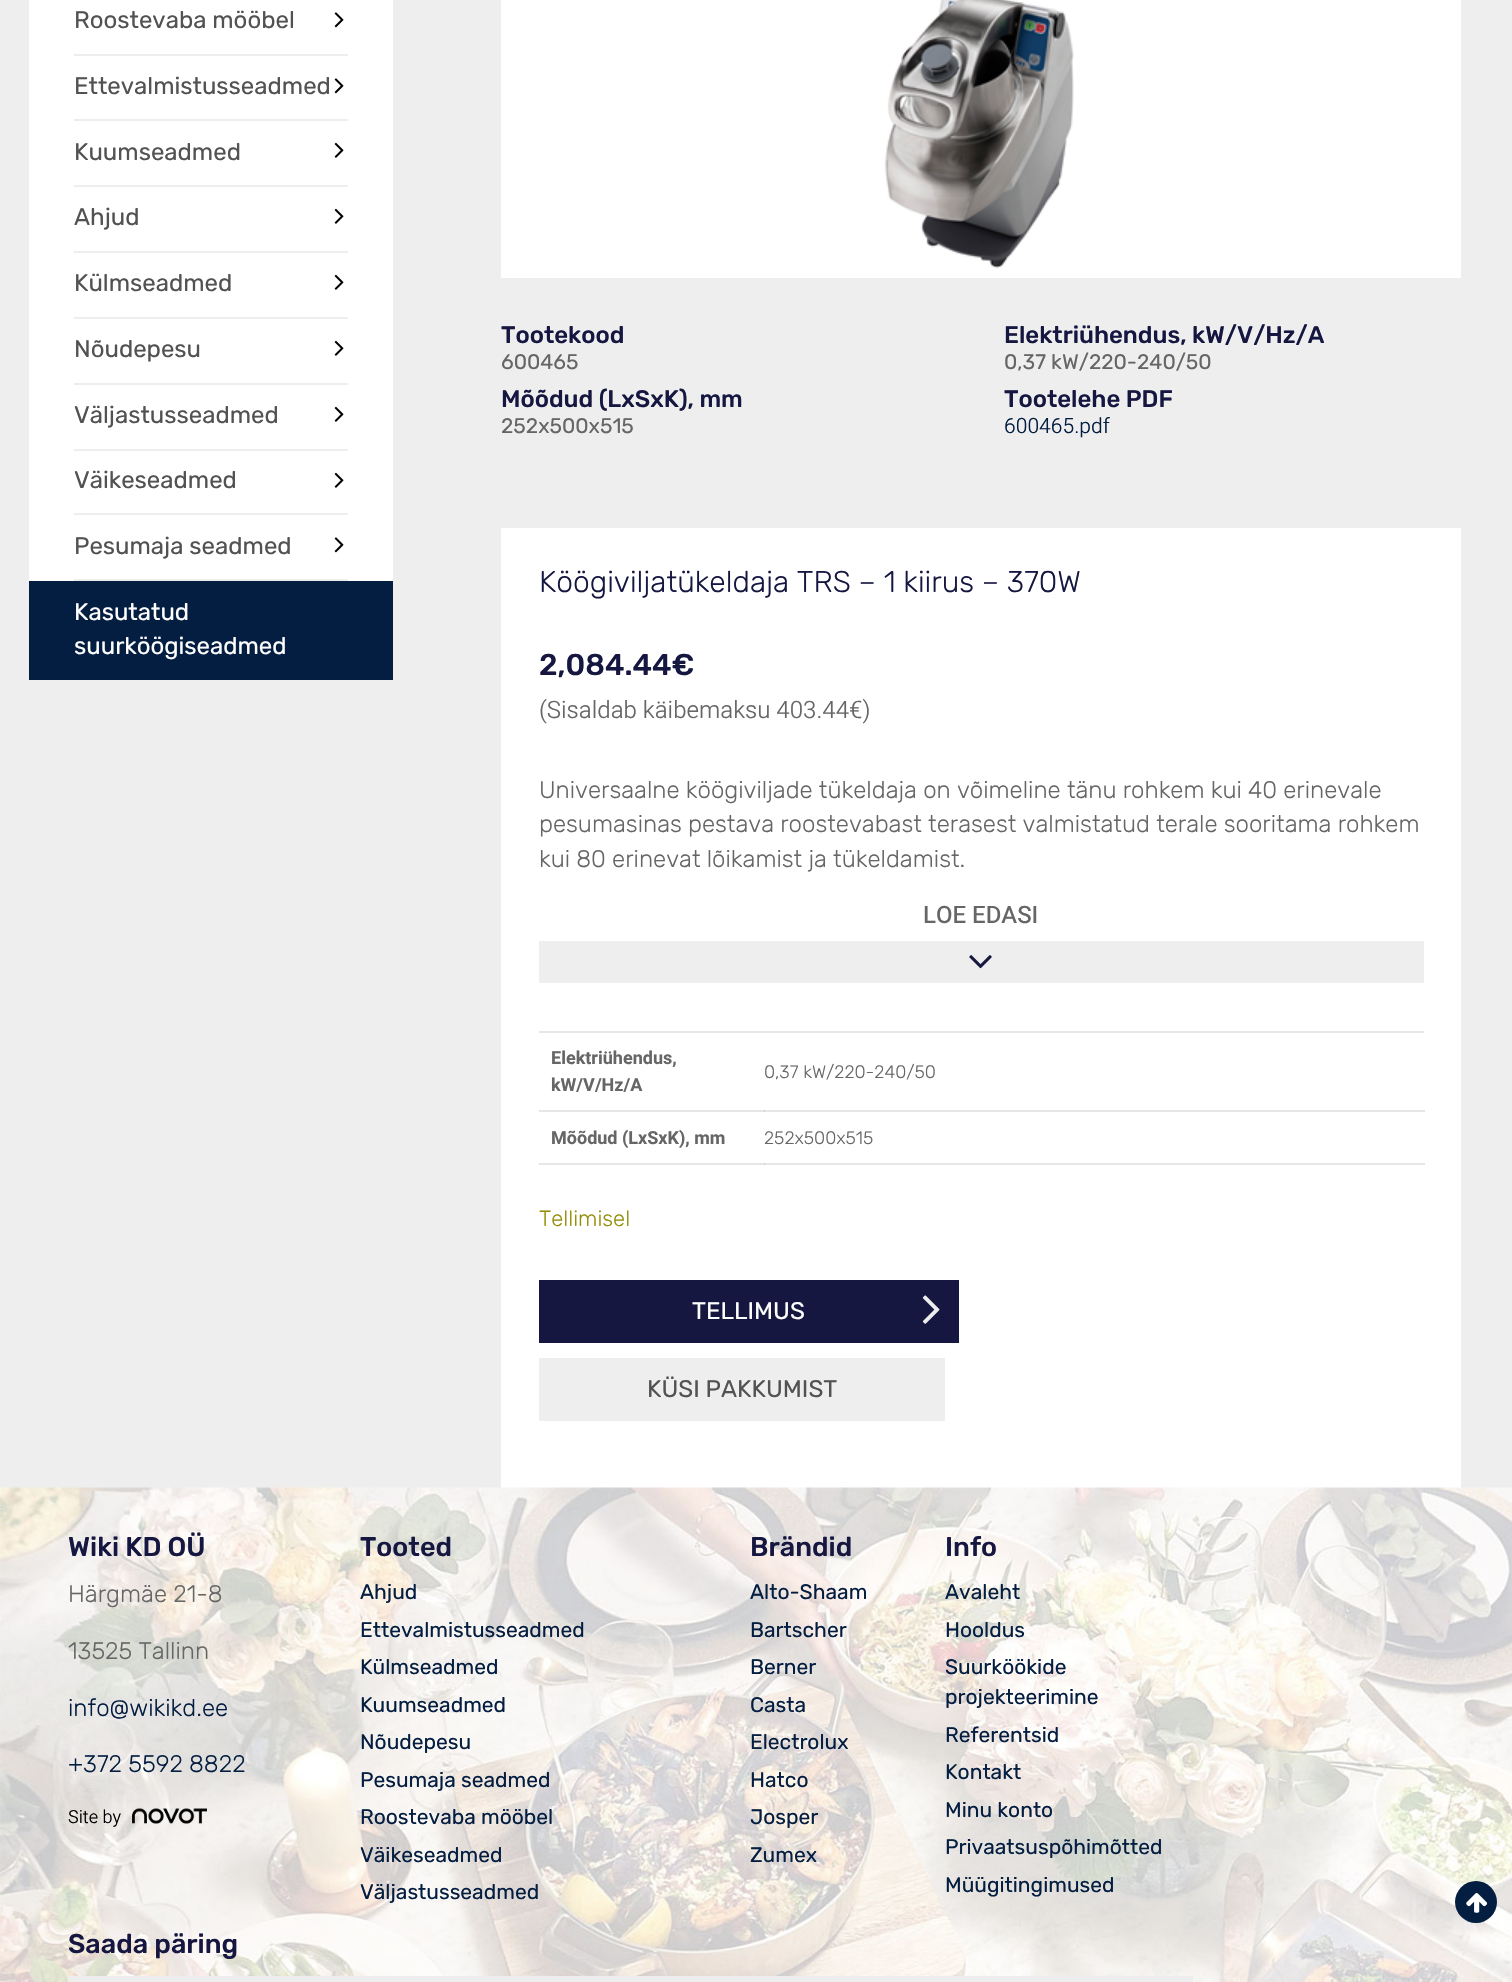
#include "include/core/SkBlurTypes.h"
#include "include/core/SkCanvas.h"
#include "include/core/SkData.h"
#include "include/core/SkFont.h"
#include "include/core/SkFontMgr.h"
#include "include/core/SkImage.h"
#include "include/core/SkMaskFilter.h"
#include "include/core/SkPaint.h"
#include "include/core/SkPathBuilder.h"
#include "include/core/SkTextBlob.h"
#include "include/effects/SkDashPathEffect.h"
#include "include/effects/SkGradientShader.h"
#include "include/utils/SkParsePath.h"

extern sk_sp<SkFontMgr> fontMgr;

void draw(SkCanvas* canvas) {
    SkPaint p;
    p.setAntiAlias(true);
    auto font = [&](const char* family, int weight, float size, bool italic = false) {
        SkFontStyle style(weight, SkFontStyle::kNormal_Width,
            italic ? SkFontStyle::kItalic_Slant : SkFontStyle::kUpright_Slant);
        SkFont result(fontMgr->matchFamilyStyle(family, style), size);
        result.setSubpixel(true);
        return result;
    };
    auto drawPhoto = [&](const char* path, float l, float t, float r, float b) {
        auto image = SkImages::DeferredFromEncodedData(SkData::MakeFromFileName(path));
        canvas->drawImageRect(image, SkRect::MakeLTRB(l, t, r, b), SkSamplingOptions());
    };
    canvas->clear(0xFFEEEEEE);
    p.setColor(0xFFFFFFFF);
    canvas->drawRect(SkRect::MakeLTRB(29, 0, 393, 581), p);
    p.setColor(0xFFEEEEEE);
    canvas->drawRect(SkRect::MakeLTRB(74, 54, 348, 56), p);
    auto font1 = font("Rubik", 400, 24);
    p.setColor(0xFF525252);
    canvas->drawString("Roostevaba mööbel", 74, 28, font1, p);
    drawPhoto("media/1.png", 334, 12, 344, 28);
    p.setColor(0xFFEEEEEE);
    canvas->drawRect(SkRect::MakeLTRB(74, 119, 348, 121), p);
    p.setColor(0xFF525252);
    canvas->drawString("Ettevalmistusseadmed", 74, 94, font1, p);
    drawPhoto("media/1.png", 334, 78, 344, 94);
    p.setColor(0xFFEEEEEE);
    canvas->drawRect(SkRect::MakeLTRB(74, 185, 348, 187), p);
    p.setColor(0xFF525252);
    canvas->drawString("Kuumseadmed", 74, 160, font1, p);
    drawPhoto("media/2.png", 334, 142, 344, 158);
    p.setColor(0xFFEEEEEE);
    canvas->drawRect(SkRect::MakeLTRB(74, 251, 348, 253), p);
    p.setColor(0xFF525252);
    canvas->drawString("Ahjud", 74, 225, font1, p);
    drawPhoto("media/2.png", 334, 208, 344, 224);
    p.setColor(0xFFEEEEEE);
    canvas->drawRect(SkRect::MakeLTRB(74, 317, 348, 319), p);
    p.setColor(0xFF525252);
    canvas->drawString("Külmseadmed", 74, 291, font1, p);
    drawPhoto("media/2.png", 334, 274, 344, 290);
    p.setColor(0xFFEEEEEE);
    canvas->drawRect(SkRect::MakeLTRB(74, 383, 348, 385), p);
    p.setColor(0xFF525252);
    canvas->drawString("Nõudepesu", 74, 357, font1, p);
    drawPhoto("media/2.png", 334, 340, 344, 356);
    p.setColor(0xFFEEEEEE);
    canvas->drawRect(SkRect::MakeLTRB(74, 449, 348, 451), p);
    p.setColor(0xFF525252);
    canvas->drawString("Väljastusseadmed", 74, 423, font1, p);
    drawPhoto("media/2.png", 334, 406, 344, 422);
    p.setColor(0xFFEEEEEE);
    canvas->drawRect(SkRect::MakeLTRB(74, 513, 348, 515), p);
    p.setColor(0xFF525252);
    canvas->drawString("Väikeseadmed", 74, 488, font1, p);
    drawPhoto("media/2.png", 334, 472, 344, 488);
    p.setColor(0xFFEEEEEE);
    canvas->drawRect(SkRect::MakeLTRB(74, 579, 348, 581), p);
    p.setColor(0xFF525252);
    canvas->drawString("Pesumaja seadmed", 74, 554, font1, p);
    drawPhoto("media/1.png", 334, 537, 344, 553);
    p.setColor(0xFF041E41);
    canvas->drawRect(SkRect::MakeLTRB(29, 581, 393, 680), p);
    p.setColor(0xFFFFFFFF);
    canvas->drawString("Kasutatud", 74, 620, font1, p);
    canvas->drawString("suurköögiseadmed", 74, 654, font1, p);
    canvas->drawRect(SkRect::MakeLTRB(501, 0, 1461, 278), p);
    drawPhoto("media/3.png", 884, 0, 1074, 269);
    auto font2 = font("Rubik", 500, 24);
    p.setColor(0xFF151741);
    canvas->drawString("Tootekood", 501, 343, font2, p);
    auto font3 = font("Rubik", 400, 21);
    p.setColor(0xFF666666);
    canvas->drawString("600465", 501, 369, font3, p);
    p.setColor(0xFF151741);
    canvas->drawString("Elektriühendus, kW/V/Hz/A", 1004, 343, font2, p);
    p.setColor(0xFF666666);
    canvas->drawString("0,37 kW/220-240/50", 1004, 369, font3, p);
    p.setColor(0xFF151741);
    canvas->drawString("Mõõdud (LxSxK), mm", 501, 407, font2, p);
    p.setColor(0xFF666666);
    canvas->drawString("252x500x515", 501, 433, font3, p);
    p.setColor(0xFF151741);
    canvas->drawString("Tootelehe PDF", 1004, 407, font2, p);
    auto font4 = font("Heebo", 300, 21);
    p.setColor(0xFF041E41);
    canvas->drawString("600465.pdf", 1004, 433, font4, p);
    {
        const struct { float l, t, r, b; SkColor color; } items[] = {
            {501, 528, 1461, 1488, 0xFFFFFFFF},
            {539, 1110, 1425, 1112, 0xFFE6E6E6},
            {539, 1163, 1425, 1165, 0xFFE6E6E6},
        };
        for (auto [l, t, r, b, color] : items) {
            p.setColor(color);
            canvas->drawRect(SkRect::MakeLTRB(l, t, r, b), p);
        }
    }
    auto font5 = font("Rubik", 300, 30);
    p.setColor(0xFF151741);
    canvas->drawString("Köögiviljatükeldaja TRS – 1 kiirus – 370W", 539, 592, font5, p);
    auto font6 = font("Rubik", 500, 30);
    canvas->drawString("2,084.44€", 539, 675, font6, p);
    auto font7 = font("Heebo", 300, 24);
    p.setColor(0xFF666666);
    canvas->drawString("(Sisaldab käibemaksu 403.44€)", 539, 718, font7, p);
    auto font8 = font("Rubik", 300, 24);
    {
        const struct { const char* s; float x, y; } items[] = {
            {"Universaalne köögiviljade tükeldaja on võimeline tänu rohkem kui 40 erinevale", 539, 798},
            {"pesumasinas pestava roostevabast terasest valmistatud terale sooritama rohkem", 539, 832},
            {"kui 80 erinevat lõikamist ja tükeldamist.", 539, 867},
        };
        for (auto [s, x, y] : items) {
            canvas->drawString(s, x, y, font8, p);
        }
    }
    auto font9 = font("Heebo", 500, 24);
    canvas->drawString("LOE EDASI", 923, 923, font9, p);
    p.setColor(0xFFEEEEEE);
    canvas->drawRect(SkRect::MakeLTRB(539, 941, 1424, 983), p);
    drawPhoto("media/4.png", 969, 955, 992, 969);
    p.setColor(0xFFE6E6E6);
    canvas->drawRect(SkRect::MakeLTRB(539, 1031, 1424, 1033), p);
    auto font10 = font("Heebo", 700, 18);
    p.setColor(0xFF666666);
    canvas->drawString("Elektriühendus,", 551, 1064, font10, p);
    canvas->drawString("kW/V/Hz/A", 551, 1091, font10, p);
    p.setColor(0xFFCFCFCF);
    canvas->drawRect(SkRect::MakeLTRB(764, 1110, 765, 1112), p);
    auto font11 = font("Rubik", 300, 18);
    p.setColor(0xFF666666);
    canvas->drawString("0,37 kW/220-240/50", 764, 1078, font11, p);
    canvas->drawString("Mõõdud (LxSxK), mm", 551, 1144, font10, p);
    p.setColor(0xFFCFCFCF);
    canvas->drawRect(SkRect::MakeLTRB(764, 1163, 765, 1165), p);
    p.setColor(0xFF666666);
    canvas->drawString("252x500x515", 764, 1144, font11, p);
    auto font12 = font("Rubik", 300, 22);
    p.setColor(0xFF958E09);
    canvas->drawString("Tellimisel", 539, 1226, font12, p);
    p.setColor(0xFF151741);
    canvas->drawRect(SkRect::MakeLTRB(539, 1280, 959, 1343), p);
    p.setColor(0xFFFFFFFF);
    canvas->drawString("TELLIMUS", 692, 1319, font1, p);
    drawPhoto("media/5.png", 922, 1295, 940, 1324);
    p.setColor(0xFFEEEEEE);
    canvas->drawRect(SkRect::MakeLTRB(539, 1358, 945, 1421), p);
    p.setColor(0xFF525252);
    canvas->drawString("KÜSI PAKKUMIST", 647, 1397, font1, p);
    drawPhoto("media/6.png", 0, 1487, 1512, 1982);
    auto font13 = font("Rubik", 500, 27);
    p.setColor(0xFF151741);
    canvas->drawString("Wiki KD OÜ", 68, 1556, font13, p);
    p.setColor(0xFF666666);
    canvas->drawString("Härgmäe 21-8", 68, 1602, font8, p);
    canvas->drawString("13525 Tallinn", 68, 1659, font8, p);
    p.setColor(0xFF041E41);
    canvas->drawString("info@wikikd.ee", 68, 1716, font8, p);
    canvas->drawString("+372 5592 8822", 68, 1772, font8, p);
    auto font14 = font("Heebo", 300, 18);
    p.setColor(0xFF000000);
    canvas->drawString("Site by", 68, 1823, font14, p);
    drawPhoto("media/7.png", 132, 1808, 207, 1824);
    p.setColor(0xFF151741);
    canvas->drawString("Tooted", 360, 1556, font13, p);
    p.setColor(0xFF041E41);
    {
        const struct { const char* s; float x, y; } items[] = {
            {"Ahjud", 360, 1599},
            {"Ettevalmistusseadmed", 360, 1637},
            {"Külmseadmed", 360, 1674},
            {"Kuumseadmed", 360, 1712},
            {"Nõudepesu", 360, 1749},
            {"Pesumaja seadmed", 360, 1787},
            {"Roostevaba mööbel", 360, 1824},
            {"Väikeseadmed", 360, 1862},
            {"Väljastusseadmed", 360, 1899},
        };
        for (auto [s, x, y] : items) {
            canvas->drawString(s, x, y, font3, p);
        }
    }
    p.setColor(0xFF151741);
    canvas->drawString("Brändid", 750, 1556, font13, p);
    p.setColor(0xFF041E41);
    {
        const struct { const char* s; float x, y; } items[] = {
            {"Alto-Shaam", 750, 1599},
            {"Bartscher", 750, 1637},
            {"Berner", 750, 1674},
            {"Casta", 750, 1712},
            {"Electrolux", 750, 1749},
            {"Hatco", 750, 1787},
            {"Josper", 750, 1824},
            {"Zumex", 750, 1862},
        };
        for (auto [s, x, y] : items) {
            canvas->drawString(s, x, y, font3, p);
        }
    }
    p.setColor(0xFF151741);
    canvas->drawString("Info", 945, 1556, font13, p);
    p.setColor(0xFF041E41);
    {
        const struct { const char* s; float x, y; } items[] = {
            {"Avaleht", 945, 1599},
            {"Hooldus", 945, 1637},
            {"Suurköökide", 945, 1674},
            {"projekteerimine", 945, 1704},
            {"Referentsid", 945, 1742},
            {"Kontakt", 945, 1779},
            {"Minu konto", 945, 1817},
            {"Privaatsuspõhimõtted", 945, 1854},
            {"Müügitingimused", 945, 1892},
        };
        for (auto [s, x, y] : items) {
            canvas->drawString(s, x, y, font3, p);
        }
    }
    p.setColor(0xFF151741);
    canvas->drawString("Saada päring", 68, 1953, font13, p);
    p.setColor(0xFFEEEEEE);
    canvas->drawRect(SkRect::MakeLTRB(68, 1976, 1193, 1982), p);
    p.setColor(0xFF041E41);
    canvas->drawCircle(1476, 1902, 21, p);
    drawPhoto("media/8.png", 1466, 1893, 1488, 1913);
}
